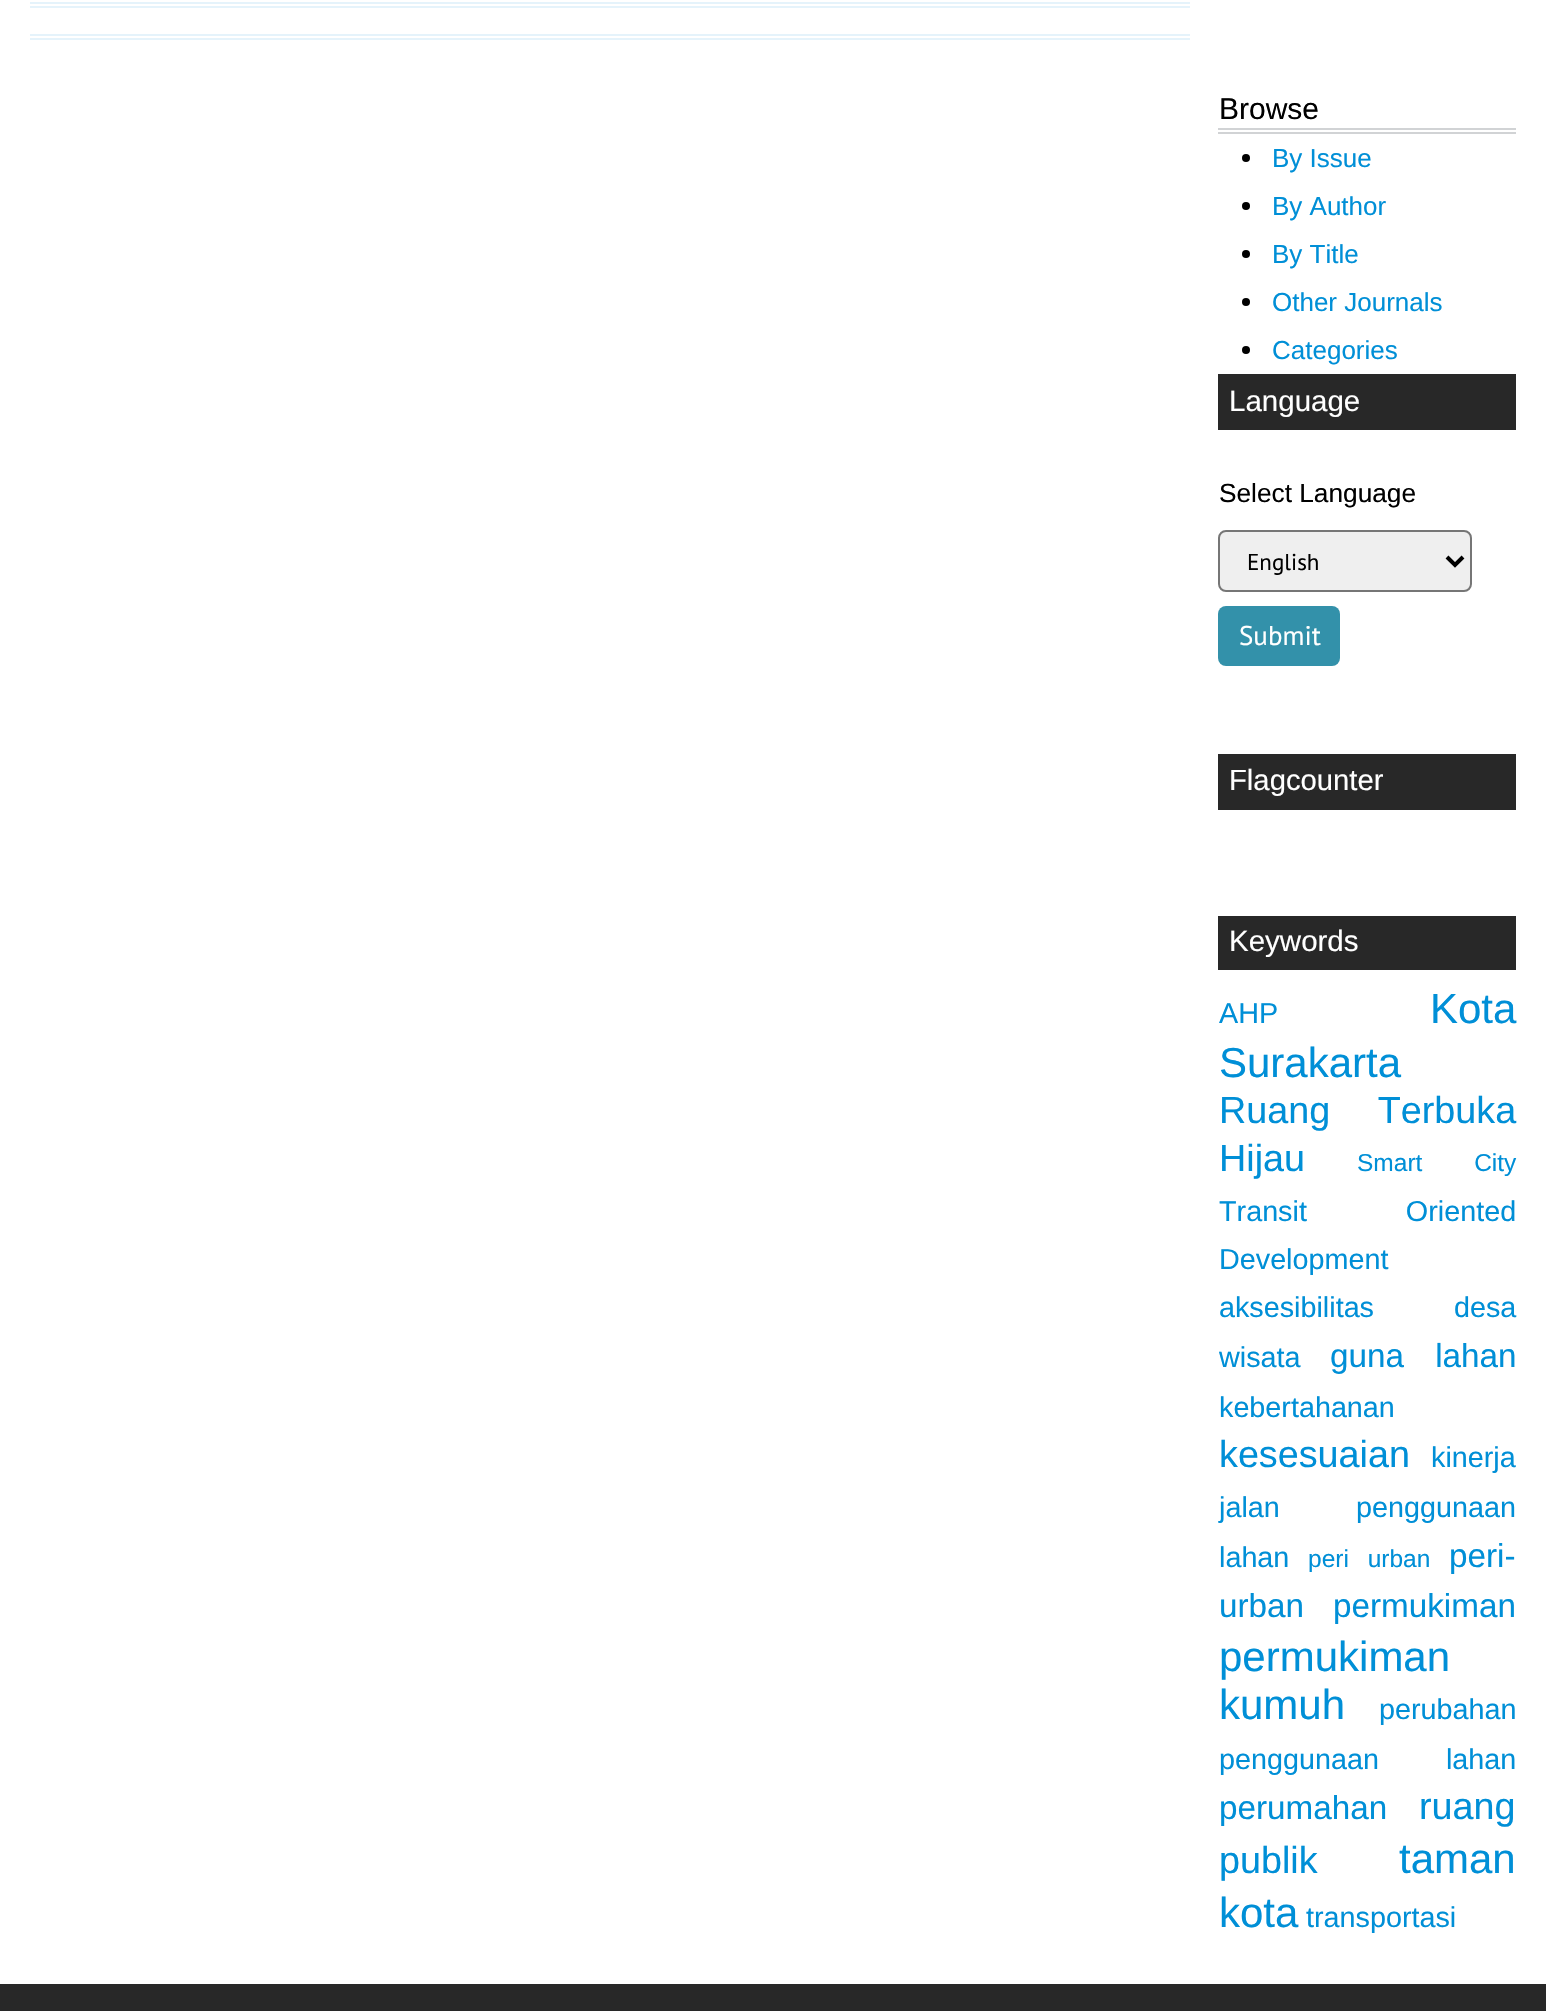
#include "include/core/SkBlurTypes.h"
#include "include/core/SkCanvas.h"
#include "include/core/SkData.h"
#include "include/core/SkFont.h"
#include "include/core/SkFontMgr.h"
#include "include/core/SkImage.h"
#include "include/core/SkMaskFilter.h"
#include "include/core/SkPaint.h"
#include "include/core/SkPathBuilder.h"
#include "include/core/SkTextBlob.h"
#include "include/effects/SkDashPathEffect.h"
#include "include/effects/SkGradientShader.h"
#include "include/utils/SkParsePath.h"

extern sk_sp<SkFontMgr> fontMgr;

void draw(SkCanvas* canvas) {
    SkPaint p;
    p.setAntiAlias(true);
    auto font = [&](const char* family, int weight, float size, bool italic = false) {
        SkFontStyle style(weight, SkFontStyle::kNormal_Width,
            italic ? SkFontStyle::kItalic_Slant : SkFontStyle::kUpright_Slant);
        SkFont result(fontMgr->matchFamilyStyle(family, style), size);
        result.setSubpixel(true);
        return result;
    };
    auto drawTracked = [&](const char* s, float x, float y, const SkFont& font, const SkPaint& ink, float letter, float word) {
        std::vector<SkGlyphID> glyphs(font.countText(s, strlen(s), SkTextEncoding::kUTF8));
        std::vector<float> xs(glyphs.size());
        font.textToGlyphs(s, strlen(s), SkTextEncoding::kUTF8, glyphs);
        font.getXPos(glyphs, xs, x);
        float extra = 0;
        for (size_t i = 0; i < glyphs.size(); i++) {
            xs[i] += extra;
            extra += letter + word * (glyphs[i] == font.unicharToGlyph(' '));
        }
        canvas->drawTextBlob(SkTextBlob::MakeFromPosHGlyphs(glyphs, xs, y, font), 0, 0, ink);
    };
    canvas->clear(0xFFFFFFFF);
    {
        const struct { float l, t, r, b; SkColor color; } items[] = {
            {30, 2, 1190, 4, 0xFFE5F3FB},
            {30, 6, 1190, 8, 0xFFE5F3FB},
            {30, 34, 1190, 36, 0xFFE5F3FB},
            {30, 38, 1190, 40, 0xFFE5F3FB},
            {1218, 128, 1516, 130, 0xFFD1D3D5},
            {1218, 132, 1516, 134, 0xFFD1D3D5},
        };
        for (auto [l, t, r, b, color] : items) {
            p.setColor(color);
            canvas->drawRect(SkRect::MakeLTRB(l, t, r, b), p);
        }
    }
    auto font1 = font("Liberation Sans", 400, 30);
    p.setColor(0xFF000000);
    canvas->drawString("Browse", 1219, 119, font1, p);
    canvas->drawCircle(1246, 158, 4, p);
    auto font2 = font("Liberation Sans", 400, 26);
    p.setColor(0xFF008FD7);
    canvas->drawString("By Issue", 1272, 167, font2, p);
    p.setColor(0xFF000000);
    canvas->drawCircle(1246, 206, 4, p);
    p.setColor(0xFF008FD7);
    canvas->drawString("By Author", 1272, 215, font2, p);
    p.setColor(0xFF000000);
    canvas->drawCircle(1246, 254, 4, p);
    p.setColor(0xFF008FD7);
    canvas->drawString("By Title", 1272, 263, font2, p);
    p.setColor(0xFF000000);
    canvas->drawCircle(1246, 302, 4, p);
    p.setColor(0xFF008FD7);
    canvas->drawString("Other Journals", 1272, 311, font2, p);
    p.setColor(0xFF000000);
    canvas->drawCircle(1246, 350, 4, p);
    p.setColor(0xFF008FD7);
    canvas->drawString("Categories", 1272, 359, font2, p);
    p.setColor(0xFF282828);
    canvas->drawRect(SkRect::MakeLTRB(1218, 374, 1516, 430), p);
    auto font3 = font("Liberation Sans", 400, 29.5f);
    p.setColor(0xFFFFFFFF);
    canvas->drawString("Language", 1229, 411, font3, p);
    auto font4 = font("Liberation Sans", 400, 26.25f);
    p.setColor(0xFF000000);
    canvas->drawString("Select Language", 1219, 502, font4, p);
    p.setColor(0xFFEFEFEF);
    canvas->drawRoundRect(SkRect::MakeLTRB(1219, 531, 1471, 591), 7, 7, p);
    p.setStyle(SkPaint::kStroke_Style);
    p.setStrokeWidth(2);
    p.setColor(0xFF767676);
    canvas->drawRoundRect(SkRect::MakeLTRB(1219, 531, 1471, 591), 7, 7, p);
    p.setStrokeWidth(4);
    p.setColor(0xFF000000);
    canvas->drawPath(SkPathBuilder().moveTo(1447, 557).lineTo(1455, 565).lineTo(1463, 557).detach(), p);
    auto font5 = font("PT Sans", 400, 23);
    p.setStyle(SkPaint::kFill_Style);
    canvas->drawString("English", 1247, 570, font5, p);
    p.setColor(0xFF3391AA);
    canvas->drawRoundRect(SkRect::MakeLTRB(1218, 606, 1340, 666), 8, 8, p);
    auto font6 = font("PT Sans", 400, 27);
    p.setColor(0xFFFFFFFF);
    canvas->drawString("Submit", 1239, 645, font6, p);
    p.setColor(0xFF282828);
    canvas->drawRect(SkRect::MakeLTRB(1218, 754, 1516, 810), p);
    auto font7 = font("Liberation Sans", 400, 29.25f);
    p.setColor(0xFFFFFFFF);
    canvas->drawString("Flagcounter", 1229, 790, font7, p);
    p.setColor(0xFF282828);
    canvas->drawRect(SkRect::MakeLTRB(1218, 916, 1516, 970), p);
    p.setColor(0xFFFFFFFF);
    canvas->drawString("Keywords", 1229, 951, font3, p);
    auto font8 = font("Liberation Sans", 400, 28.75f);
    p.setColor(0xFF008FD7);
    canvas->drawString("AHP", 1219, 1023, font8, p);
    auto font9 = font("Liberation Sans", 400, 42);
    canvas->drawString("Kota", 1430, 1023, font9, p);
    canvas->drawString("Surakarta", 1219, 1077, font9, p);
    auto font10 = font("Liberation Sans", 400, 37.75f);
    drawTracked("Ruang Terbuka", 1219, 1123, font10, p, 0, 37);
    canvas->drawString("Hijau", 1219, 1171, font10, p);
    auto font11 = font("Liberation Sans", 400, 24.5f);
    drawTracked("Smart City", 1357, 1171, font11, p, 0, 45);
    drawTracked("Transit Oriented", 1219, 1221, font8, p, 0, 91);
    {
        const struct { const char* s; float x, y; } items[] = {
            {"Development", 1219, 1269},
            {"aksesibilitas", 1219, 1317},
            {"desa", 1454, 1317},
            {"wisata", 1219, 1367},
        };
        for (auto [s, x, y] : items) {
            canvas->drawString(s, x, y, font8, p);
        }
    }
    auto font12 = font("Liberation Sans", 400, 33.25f);
    drawTracked("guna lahan", 1330, 1367, font12, p, 0, 22);
    canvas->drawString("kebertahanan", 1219, 1417, font8, p);
    canvas->drawString("kesesuaian", 1219, 1467, font10, p);
    {
        const struct { const char* s; float x, y; } items[] = {
            {"kinerja", 1431, 1467},
            {"jalan", 1219, 1517},
            {"penggunaan", 1356, 1517},
            {"lahan", 1219, 1567},
        };
        for (auto [s, x, y] : items) {
            canvas->drawString(s, x, y, font8, p);
        }
    }
    drawTracked("peri urban", 1308, 1567, font11, p, 0, 12);
    {
        const struct { const char* s; float x, y; } items[] = {
            {"peri-", 1449, 1567},
            {"urban", 1219, 1617},
            {"permukiman", 1333, 1617},
        };
        for (auto [s, x, y] : items) {
            canvas->drawString(s, x, y, font12, p);
        }
    }
    canvas->drawString("permukiman", 1219, 1671, font9, p);
    canvas->drawString("kumuh", 1219, 1719, font9, p);
    canvas->drawString("perubahan", 1379, 1719, font8, p);
    drawTracked("penggunaan lahan", 1219, 1769, font8, p, 0, 59);
    canvas->drawString("perumahan", 1219, 1819, font12, p);
    canvas->drawString("ruang", 1419, 1819, font10, p);
    canvas->drawString("publik", 1219, 1873, font10, p);
    canvas->drawString("taman", 1399, 1873, font9, p);
    canvas->drawString("kota", 1219, 1927, font9, p);
    canvas->drawString("transportasi", 1306, 1927, font8, p);
    p.setColor(0xFF282828);
    canvas->drawRect(SkRect::MakeLTRB(0, 1984, 1546, 2011), p);
}
